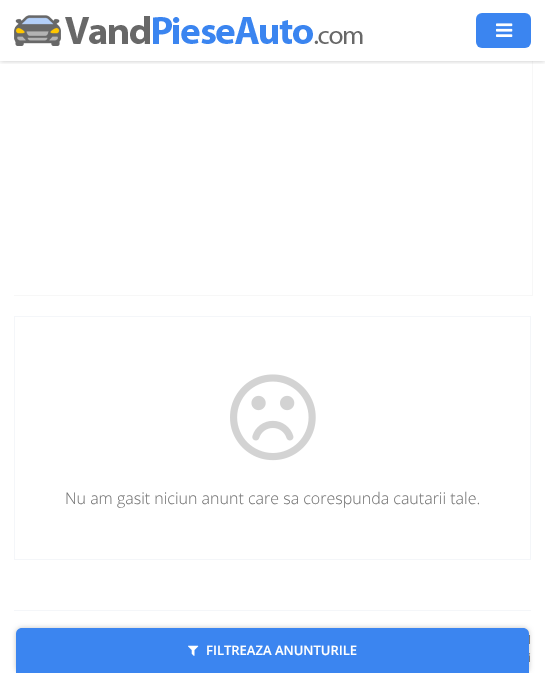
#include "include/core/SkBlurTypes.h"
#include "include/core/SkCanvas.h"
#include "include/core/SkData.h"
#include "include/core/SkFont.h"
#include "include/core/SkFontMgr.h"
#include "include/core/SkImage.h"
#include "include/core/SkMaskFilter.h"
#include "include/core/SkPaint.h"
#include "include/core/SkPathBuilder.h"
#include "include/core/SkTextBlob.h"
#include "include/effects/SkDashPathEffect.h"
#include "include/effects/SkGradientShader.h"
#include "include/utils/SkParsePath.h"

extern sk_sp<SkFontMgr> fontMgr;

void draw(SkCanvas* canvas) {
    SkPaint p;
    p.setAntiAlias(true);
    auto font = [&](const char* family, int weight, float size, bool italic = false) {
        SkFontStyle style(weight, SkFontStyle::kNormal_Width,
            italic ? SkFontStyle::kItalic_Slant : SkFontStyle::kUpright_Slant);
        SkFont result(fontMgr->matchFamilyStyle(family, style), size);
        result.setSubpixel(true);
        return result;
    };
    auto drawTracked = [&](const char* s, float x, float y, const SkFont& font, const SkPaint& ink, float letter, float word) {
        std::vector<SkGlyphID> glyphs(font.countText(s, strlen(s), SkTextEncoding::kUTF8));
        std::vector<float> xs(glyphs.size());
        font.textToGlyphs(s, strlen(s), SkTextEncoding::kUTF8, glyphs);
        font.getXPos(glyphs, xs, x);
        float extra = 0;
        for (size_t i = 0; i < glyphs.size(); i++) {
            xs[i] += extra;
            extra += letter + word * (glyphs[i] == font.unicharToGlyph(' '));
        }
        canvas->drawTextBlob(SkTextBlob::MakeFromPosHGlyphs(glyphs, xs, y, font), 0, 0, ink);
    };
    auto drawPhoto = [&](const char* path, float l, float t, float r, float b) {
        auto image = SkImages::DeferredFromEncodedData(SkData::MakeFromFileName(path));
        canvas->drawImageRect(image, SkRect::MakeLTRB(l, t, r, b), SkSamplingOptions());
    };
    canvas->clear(0xFFFFFFFF);
    p.setStyle(SkPaint::kStroke_Style);
    p.setStrokeWidth(1);
    p.setColor(0xFFF7F7F7);
    canvas->drawRect(SkRect::MakeLTRB(14.5f, -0.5f, 532.5f, 295.5f), p);
    p.setStyle(SkPaint::kFill_Style);
    p.setColor(0xFFFFFFFF);
    canvas->drawRect(SkRect::MakeLTRB(14, 0, 15, 295), p);
    canvas->save();
    canvas->clipRect(SkRect::MakeLTRB(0, 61, 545, 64));
    p.setColor(0x3B000000);
    p.setMaskFilter(SkMaskFilter::MakeBlur(kNormal_SkBlurStyle, 2.5f));
    canvas->drawRect(SkRect::MakeLTRB(0, 0, 545, 61), p);
    p.setMaskFilter(nullptr);
    canvas->restore();
    p.setColor(0xF2FFFFFF);
    canvas->drawRect(SkRect::MakeLTRB(532, 0, 533, 61), p);
    drawPhoto("media/1.png", 14, 15, 363, 46);
    p.setColor(0xFF3B85F0);
    canvas->drawRoundRect(SkRect::MakeLTRB(476, 13, 531, 48), 6, 6, p);
    drawPhoto("media/2.png", 496, 23, 513, 37);
    p.setStyle(SkPaint::kStroke_Style);
    p.setColor(0xFFF4F6F9);
    canvas->drawRect(SkRect::MakeLTRB(14.5f, 316.5f, 530.5f, 559.5f), p);
    drawPhoto("media/3.png", 230, 374, 316, 461);
    auto font1 = font("Open Sans", 300, 16);
    p.setStyle(SkPaint::kFill_Style);
    p.setColor(0xFF777777);
    canvas->drawString("Nu am gasit niciun anunt care sa corespunda cautarii tale.", 65, 504, font1, p);
    p.setColor(0x3B000000);
    p.setMaskFilter(SkMaskFilter::MakeBlur(kNormal_SkBlurStyle, 2.5f));
    canvas->drawRoundRect(SkRect::MakeLTRB(16, 628, 529, 673), 6, 6, p);
    p.setMaskFilter(nullptr);
    p.setColor(0xFF3B85F0);
    canvas->drawPath(SkPathBuilder().moveTo(22, 628).lineTo(523, 628).cubicTo(526.5f, 628, 529, 630.5f, 529, 634).lineTo(529, 673).lineTo(16, 673).lineTo(16, 634).cubicTo(16, 630.5f, 18.5f, 628, 22, 628).close().detach(), p);
    drawPhoto("media/4.png", 188, 645, 199, 656);
    auto font2 = font("Open Sans", 600, 13);
    p.setColor(0xFFFFFFFF);
    canvas->drawString("FILTREAZA ANUNTURILE", 206, 655, font2, p);
    p.setColor(0xFFF4F6F9);
    canvas->drawRect(SkRect::MakeLTRB(14, 610, 531, 611), p);
    auto font3 = font("Open Sans", 400, 12);
    p.setColor(0xFF777777);
    drawTracked("l", 528, 644, font3, p, 0, 1);
    canvas->drawString("i", 528, 662, font3, p);
}
